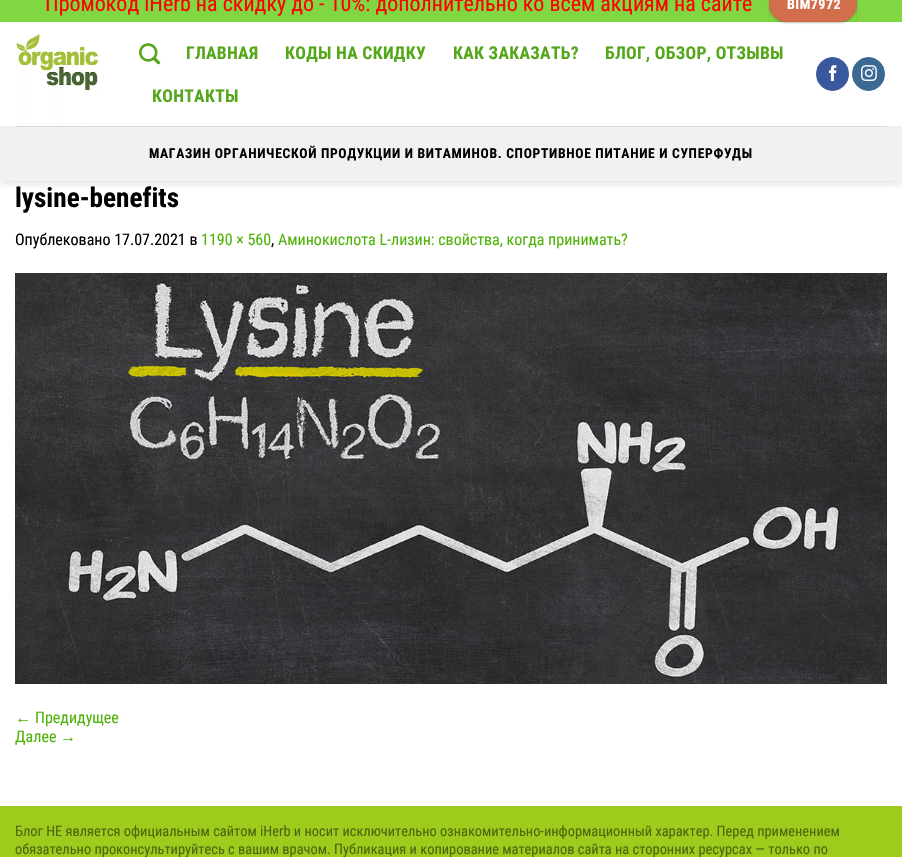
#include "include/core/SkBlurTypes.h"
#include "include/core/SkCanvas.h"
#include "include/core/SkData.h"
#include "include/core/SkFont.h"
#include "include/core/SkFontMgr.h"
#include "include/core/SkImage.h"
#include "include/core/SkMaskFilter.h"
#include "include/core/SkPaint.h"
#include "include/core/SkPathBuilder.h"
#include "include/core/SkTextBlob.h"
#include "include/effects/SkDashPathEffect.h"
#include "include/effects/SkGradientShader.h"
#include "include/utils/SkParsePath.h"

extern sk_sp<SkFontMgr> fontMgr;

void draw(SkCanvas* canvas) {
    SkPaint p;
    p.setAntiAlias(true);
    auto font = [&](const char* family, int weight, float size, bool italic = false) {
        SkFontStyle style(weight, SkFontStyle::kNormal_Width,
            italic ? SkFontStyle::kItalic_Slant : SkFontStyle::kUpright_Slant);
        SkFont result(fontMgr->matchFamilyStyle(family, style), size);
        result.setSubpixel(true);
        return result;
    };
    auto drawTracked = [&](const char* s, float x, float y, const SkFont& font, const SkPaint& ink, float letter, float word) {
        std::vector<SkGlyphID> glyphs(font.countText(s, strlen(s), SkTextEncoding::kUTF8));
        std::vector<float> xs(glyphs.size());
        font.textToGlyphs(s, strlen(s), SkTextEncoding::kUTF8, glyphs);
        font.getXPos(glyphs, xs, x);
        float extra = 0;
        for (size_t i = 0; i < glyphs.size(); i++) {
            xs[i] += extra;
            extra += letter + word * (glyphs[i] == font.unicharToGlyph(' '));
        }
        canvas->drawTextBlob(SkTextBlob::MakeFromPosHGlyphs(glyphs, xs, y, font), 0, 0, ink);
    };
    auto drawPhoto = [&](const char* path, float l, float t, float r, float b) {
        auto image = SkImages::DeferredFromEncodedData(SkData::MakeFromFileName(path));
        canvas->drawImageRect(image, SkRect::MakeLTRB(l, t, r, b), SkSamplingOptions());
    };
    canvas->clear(0xFFFFFFFF);
    canvas->save();
    canvas->clipRect(SkRect::MakeLTRB(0, 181, 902, 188));
    p.setColor(0x26000000);
    p.setMaskFilter(SkMaskFilter::MakeBlur(kNormal_SkBlurStyle, 5));
    canvas->drawRect(SkRect::MakeLTRB(1, -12, 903, 182), p);
    p.setMaskFilter(nullptr);
    canvas->restore();
    p.setColor(0xFF81D742);
    canvas->drawRect(SkRect::MakeLTRB(0, 0, 902, 22), p);
    auto font1 = font("Roboto Condensed", 400, 22);
    p.setColor(0xFFFF0000);
    canvas->drawString("Промокод iHerb на скидку до - 10%: дополнительно ко всем акциям на сайте", 45, 11, font1, p);
    p.setColor(0x3D000000);
    p.setMaskFilter(SkMaskFilter::MakeBlur(kNormal_SkBlurStyle, 1));
    canvas->drawRoundRect(SkRect::MakeLTRB(769, -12, 857, 23), 17.5f, 17.5f, p);
    p.setMaskFilter(nullptr);
    p.setColor(0xFFD26E4B);
    canvas->drawRoundRect(SkRect::MakeLTRB(769, -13, 857, 22), 17.5f, 17.5f, p);
    p.setStyle(SkPaint::kStroke_Style);
    p.setStrokeWidth(1);
    p.setColor(0x0D000000);
    canvas->drawRect(SkRect::MakeLTRB(769.5f, -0.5f, 856.5f, 21.5f), p);
    auto font2 = font("Roboto Condensed", 700, 14);
    p.setStyle(SkPaint::kFill_Style);
    p.setColor(0xFFFFFFFF);
    drawTracked("BIM7972", 787, 9, font2, p, 0.5f, 0);
    drawPhoto("media/1.png", 15, 33, 99, 124);
    drawPhoto("media/2.png", 139, 43, 161, 65);
    auto font3 = font("Roboto Condensed", 700, 17.6f);
    p.setColor(0xFF55A71A);
    {
        const struct { const char* s; float x, y; } items[] = {
            {"ГЛАВНАЯ", 186, 59},
            {"КОДЫ НА СКИДКУ", 285, 59},
            {"КАК ЗАКАЗАТЬ?", 453, 59},
            {"БЛОГ, ОБЗОР, ОТЗЫВЫ", 605, 59},
            {"КОНТАКТЫ", 152, 102},
        };
        for (auto [s, x, y] : items) {
            drawTracked(s, x, y, font3, p, 0.3f, 0);
        }
    }
    p.setColor(0xFF3A589D);
    canvas->drawRoundRect(SkRect::MakeLTRB(816.5f, 57.5f, 848.5f, 90.5f), 16, 16, p);
    p.setStyle(SkPaint::kStroke_Style);
    canvas->drawRoundRect(SkRect::MakeLTRB(816.5f, 57.5f, 848.5f, 90.5f), 16, 16, p);
    drawPhoto("media/3.png", 828, 65, 837, 81);
    p.setStyle(SkPaint::kFill_Style);
    p.setColor(0xFF3B6994);
    canvas->drawRoundRect(SkRect::MakeLTRB(852.5f, 57.5f, 884.5f, 90.5f), 16, 16, p);
    p.setStyle(SkPaint::kStroke_Style);
    canvas->drawRoundRect(SkRect::MakeLTRB(852.5f, 57.5f, 884.5f, 90.5f), 16, 16, p);
    drawPhoto("media/4.png", 861, 65, 877, 81);
    p.setStyle(SkPaint::kFill_Style);
    p.setColor(0xFFF1F1F1);
    canvas->drawRect(SkRect::MakeLTRB(0, 126, 902, 181), p);
    p.setColor(0xFFD9D9D9);
    canvas->drawRect(SkRect::MakeLTRB(15, 126, 887, 127), p);
    auto font4 = font("Roboto Condensed", 700, 13.6f);
    p.setColor(0xFF000000);
    drawTracked("МАГАЗИН ОРГАНИЧЕСКОЙ ПРОДУКЦИИ И ВИТАМИНОВ. СПОРТИВНОЕ ПИТАНИЕ И СУПЕРФУДЫ", 149, 158, font4, p, 0.68f, 0);
    auto font5 = font("Roboto Condensed", 700, 27.25f);
    canvas->drawString("lysine-benefits", 15, 207, font5, p);
    auto font6 = font("Roboto Condensed", 400, 16);
    canvas->drawString("Опублековано 17.07.2021 в", 15, 245, font6, p);
    p.setColor(0xFF50B309);
    canvas->drawString("1190 × 560", 201, 245, font6, p);
    p.setColor(0xFF000000);
    canvas->drawString(",", 271, 245, font6, p);
    p.setColor(0xFF50B309);
    canvas->drawString("Аминокислота L-лизин: свойства, когда принимать?", 278, 245, font6, p);
    drawPhoto("media/5.png", 15, 273, 887, 684);
    auto font7 = font("Liberation Sans", 400, 16);
    canvas->drawString("←", 15, 723, font7, p);
    canvas->drawString("Предидущее", 35, 723, font6, p);
    canvas->drawString("Далее", 15, 742, font6, p);
    canvas->drawString("→", 60, 742, font7, p);
    p.setColor(0xFF9DCC1C);
    canvas->drawRect(SkRect::MakeLTRB(0, 806, 902, 857), p);
    auto font8 = font("Roboto Condensed", 400, 14.4f);
    p.setColor(0xFF4F660E);
    canvas->drawString("Блог НЕ является официальным сайтом iHerb и носит исключительно ознакомительно-информационный характер. Перед применением", 15, 836, font8, p);
    canvas->drawString("обязательно проконсультируйтесь с вашим врачом. Публикация и копирование материалов сайта на сторонних ресурсах — только по", 15, 854, font8, p);
}
